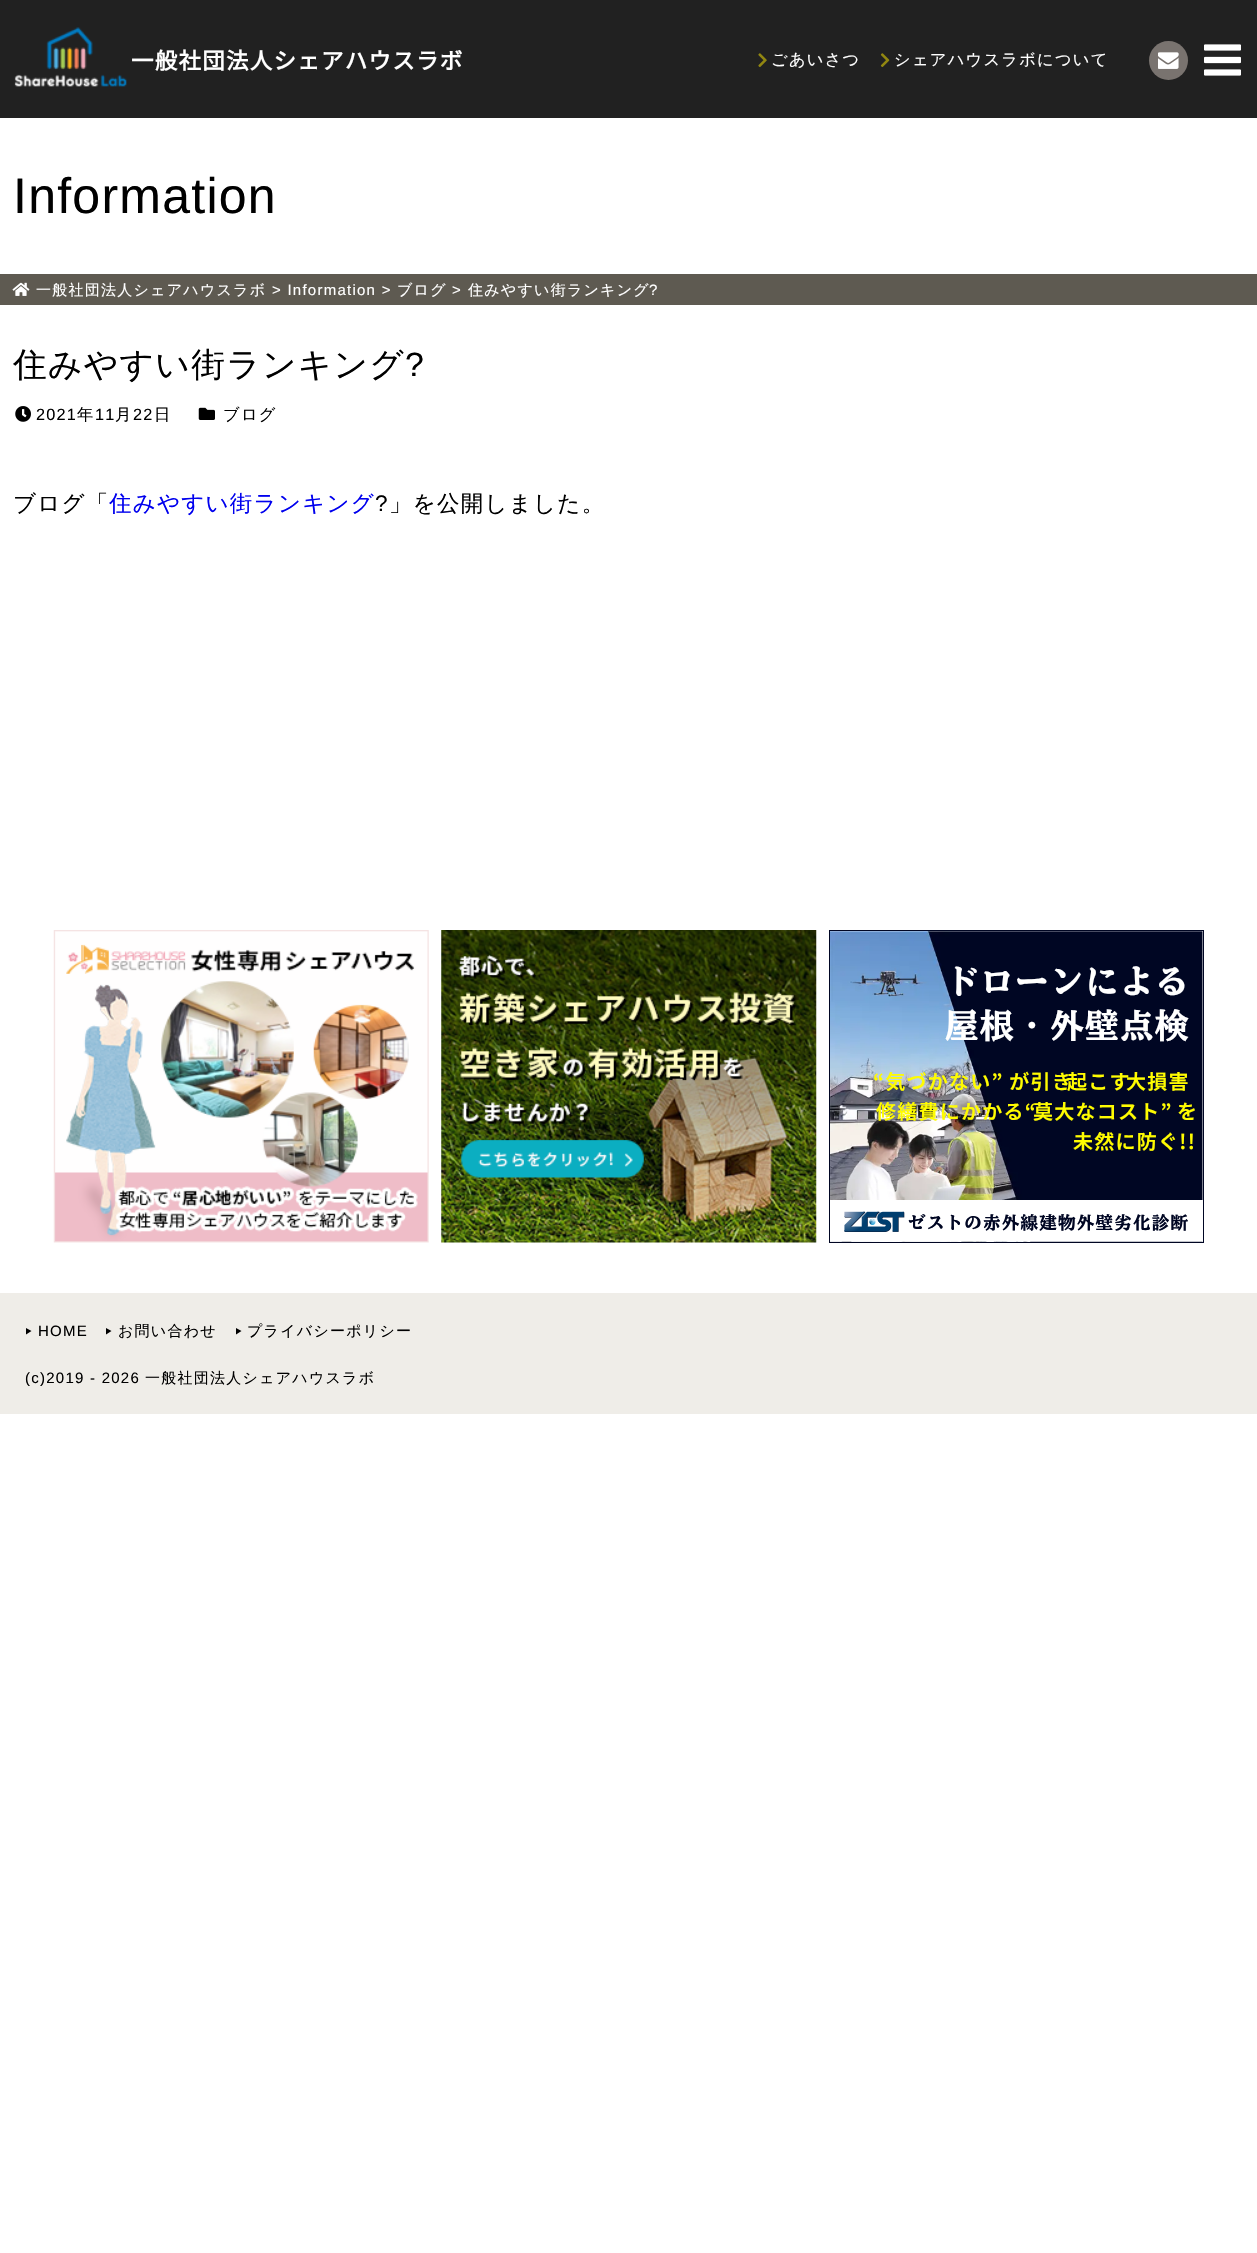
#include "include/core/SkBlurTypes.h"
#include "include/core/SkCanvas.h"
#include "include/core/SkData.h"
#include "include/core/SkFont.h"
#include "include/core/SkFontMgr.h"
#include "include/core/SkImage.h"
#include "include/core/SkMaskFilter.h"
#include "include/core/SkPaint.h"
#include "include/core/SkPathBuilder.h"
#include "include/core/SkTextBlob.h"
#include "include/effects/SkDashPathEffect.h"
#include "include/effects/SkGradientShader.h"
#include "include/utils/SkParsePath.h"

extern sk_sp<SkFontMgr> fontMgr;

void draw(SkCanvas* canvas) {
    SkPaint p;
    p.setAntiAlias(true);
    auto font = [&](const char* family, int weight, float size, bool italic = false) {
        SkFontStyle style(weight, SkFontStyle::kNormal_Width,
            italic ? SkFontStyle::kItalic_Slant : SkFontStyle::kUpright_Slant);
        SkFont result(fontMgr->matchFamilyStyle(family, style), size);
        result.setSubpixel(true);
        return result;
    };
    auto drawTracked = [&](const char* s, float x, float y, const SkFont& font, const SkPaint& ink, float letter, float word) {
        std::vector<SkGlyphID> glyphs(font.countText(s, strlen(s), SkTextEncoding::kUTF8));
        std::vector<float> xs(glyphs.size());
        font.textToGlyphs(s, strlen(s), SkTextEncoding::kUTF8, glyphs);
        font.getXPos(glyphs, xs, x);
        float extra = 0;
        for (size_t i = 0; i < glyphs.size(); i++) {
            xs[i] += extra;
            extra += letter + word * (glyphs[i] == font.unicharToGlyph(' '));
        }
        canvas->drawTextBlob(SkTextBlob::MakeFromPosHGlyphs(glyphs, xs, y, font), 0, 0, ink);
    };
    auto drawPhoto = [&](const char* path, float l, float t, float r, float b) {
        auto image = SkImages::DeferredFromEncodedData(SkData::MakeFromFileName(path));
        canvas->drawImageRect(image, SkRect::MakeLTRB(l, t, r, b), SkSamplingOptions());
    };
    canvas->clear(0xFFFFFFFF);
    p.setColor(0xFF212121);
    canvas->drawRect(SkRect::MakeLTRB(0, 0, 1257, 118), p);
    drawPhoto("media/1.png", 14, 27, 127, 87);
    auto font1 = font("Noto Sans CJK JP", 700, 22.5f);
    p.setColor(0xFFFFFFFF);
    drawTracked("一般社団法人シェアハウスラボ", 131, 69, font1, p, 1.25f, 0);
    drawPhoto("media/2.png", 758, 53, 767, 67);
    auto font2 = font("WenQuanYi Zen Hei", 500, 16.25f);
    drawTracked("ごあいさつ", 771, 65, font2, p, 1.25f, 0);
    drawPhoto("media/3.png", 880, 53, 890, 67);
    drawTracked("シェアハウスラボについて", 894, 65, font2, p, 1.25f, 0);
    p.setColor(0xFF79736F);
    canvas->drawCircle(1168.5f, 60.5f, 19.5f, p);
    drawPhoto("media/4.png", 1158, 52, 1179, 69);
    drawPhoto("media/5.png", 1204, 44, 1241, 76);
    auto font3 = font("Liberation Sans", 400, 50);
    p.setColor(0xFF000000);
    drawTracked("Information", 13, 213, font3, p, 1.25f, 0);
    p.setColor(0xFF5E5A51);
    canvas->drawRect(SkRect::MakeLTRB(0, 274, 1257, 305), p);
    drawPhoto("media/6.png", 12, 282, 30, 296);
    auto font4 = font("WenQuanYi Zen Hei", 500, 15);
    p.setColor(0xFFFFFFFF);
    drawTracked("一般社団法人シェアハウスラボ", 36, 295, font4, p, 1.25f, 0);
    auto font5 = font("Liberation Sans", 400, 15);
    drawTracked("> Information >", 272, 295, font5, p, 1.25f, 0);
    drawTracked("ブログ", 397, 295, font4, p, 1.25f, 0);
    drawTracked(">", 452, 295, font5, p, 1.25f, 0);
    drawTracked("住みやすい街ランキング", 468, 295, font4, p, 1.25f, 0);
    drawTracked("?", 649, 295, font5, p, 1.25f, 0);
    auto font6 = font("WenQuanYi Zen Hei", 500, 33.75f);
    p.setColor(0xFF000000);
    drawTracked("住みやすい街ランキング", 13, 376, font6, p, 1.25f, 0);
    auto font7 = font("Liberation Sans", 400, 33.75f);
    drawTracked("?", 405, 376, font7, p, 1.25f, 0);
    drawPhoto("media/7.png", 15, 406, 31, 422);
    auto font8 = font("Liberation Sans", 400, 16.25f);
    drawTracked("2021", 36, 420, font8, p, 1.25f, 0);
    drawTracked("年", 77, 420, font2, p, 1.25f, 0);
    drawTracked("11", 95, 420, font8, p, 1.25f, 0);
    drawTracked("月", 115, 420, font2, p, 1.25f, 0);
    drawTracked("22", 133, 420, font8, p, 1.25f, 0);
    drawTracked("日", 154, 420, font2, p, 1.25f, 0);
    drawPhoto("media/8.png", 198, 407, 215, 420);
    drawTracked("ブログ", 223, 420, font2, p, 1.25f, 0);
    auto font9 = font("WenQuanYi Zen Hei", 500, 22.5f);
    drawTracked("ブログ「", 13, 511, font9, p, 1.25f, 0);
    p.setColor(0xFF0000EE);
    drawTracked("住みやすい街ランキング", 109, 511, font9, p, 1.25f, 0);
    auto font10 = font("Liberation Sans", 400, 22.5f);
    p.setColor(0xFF000000);
    drawTracked("?", 375, 511, font10, p, 1.25f, 0);
    drawTracked("」を公開しました。", 389, 511, font9, p, 1.25f, 0);
    drawPhoto("media/9.png", 53, 930, 429, 1243);
    drawPhoto("media/10.png", 441, 930, 817, 1243);
    drawPhoto("media/11.png", 830, 931, 1203, 1242);
    p.setStyle(SkPaint::kStroke_Style);
    p.setStrokeWidth(1);
    p.setColor(0xFF000623);
    canvas->drawRect(SkRect::MakeLTRB(829.5f, 930.5f, 1203.5f, 1242.5f), p);
    auto font11 = font("BIZ UDMincho", 700, 33.75f);
    p.setStyle(SkPaint::kFill_Style);
    p.setColor(0xFFFFFFFF);
    drawTracked("ドローンによる", 945, 994, font11, p, 1.25f, 0);
    drawTracked("屋根・外壁点検", 945, 1038, font11, p, 1.25f, 0);
    auto font12 = font("Noto Sans JP", 600, 20);
    p.setColor(0xFFFFFC00);
    {
        const struct { const char* s; float x, y; } items[] = {
            {"“気づかない” が引き", 873, 1089},
            {"起こす", 1067, 1089},
            {"大損害", 1126, 1089},
            {"修繕費にかかる“", 876, 1119},
            {"莫大なコスト”", 1033, 1119},
            {"を", 1177, 1119},
            {"未然に防ぐ!!", 1073, 1149},
        };
        for (auto [s, x, y] : items) {
            drawTracked(s, x, y, font12, p, 1.25f, 0);
        }
    }
    p.setColor(0xFFFFFFFF);
    canvas->drawRect(SkRect::MakeLTRB(830, 1200, 1203, 1241), p);
    drawPhoto("media/12.png", 844, 1211, 905, 1232);
    auto font13 = font("BIZ UDMincho", 700, 17.5f);
    p.setColor(0xFF000623);
    drawTracked("ゼストの赤外線建物外壁劣化診断", 908, 1229, font13, p, 1.25f, 0);
    p.setColor(0xFFEFEDE8);
    canvas->drawRect(SkRect::MakeLTRB(0, 1293, 1257, 1414), p);
    p.setColor(0xFF000000);
    canvas->drawPath(SkPathBuilder().moveTo(26, 1328).lineTo(31.5f, 1331).lineTo(26, 1334.5f).close().detach(), p);
    drawTracked("HOME", 38, 1336, font5, p, 1.25f, 0);
    canvas->drawPath(SkPathBuilder().moveTo(106, 1328).lineTo(111.5f, 1331).lineTo(106, 1334.5f).close().detach(), p);
    drawTracked("お問い合わせ", 118, 1336, font4, p, 1.25f, 0);
    canvas->drawPath(SkPathBuilder().moveTo(236, 1328).lineTo(241.5f, 1331).lineTo(236, 1334.5f).close().detach(), p);
    drawTracked("プライバシーポリシー", 247, 1336, font4, p, 1.25f, 0);
    drawTracked("(c)2019 - 2026", 25, 1383, font5, p, 1.25f, 0);
    drawTracked("一般社団法人シェアハウスラボ", 145, 1383, font4, p, 1.25f, 0);
}
